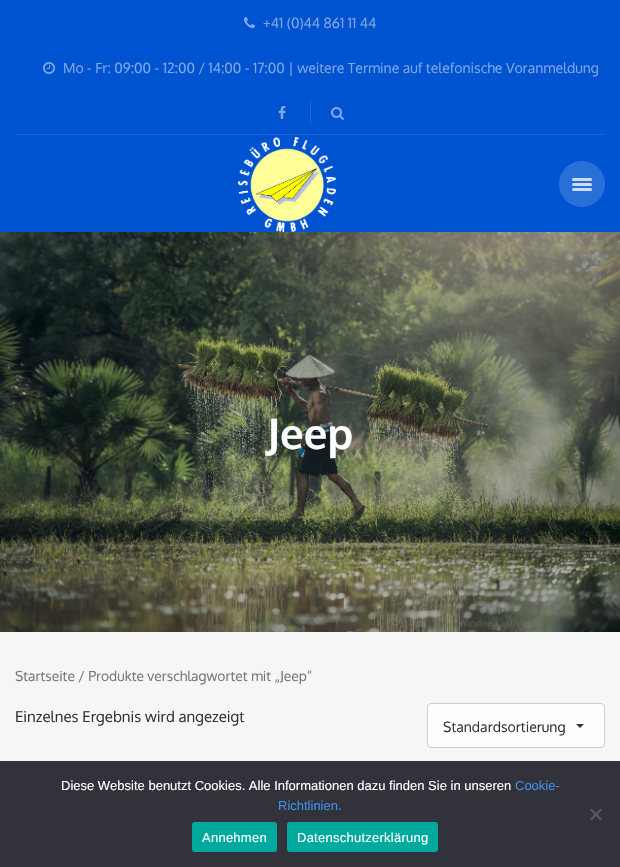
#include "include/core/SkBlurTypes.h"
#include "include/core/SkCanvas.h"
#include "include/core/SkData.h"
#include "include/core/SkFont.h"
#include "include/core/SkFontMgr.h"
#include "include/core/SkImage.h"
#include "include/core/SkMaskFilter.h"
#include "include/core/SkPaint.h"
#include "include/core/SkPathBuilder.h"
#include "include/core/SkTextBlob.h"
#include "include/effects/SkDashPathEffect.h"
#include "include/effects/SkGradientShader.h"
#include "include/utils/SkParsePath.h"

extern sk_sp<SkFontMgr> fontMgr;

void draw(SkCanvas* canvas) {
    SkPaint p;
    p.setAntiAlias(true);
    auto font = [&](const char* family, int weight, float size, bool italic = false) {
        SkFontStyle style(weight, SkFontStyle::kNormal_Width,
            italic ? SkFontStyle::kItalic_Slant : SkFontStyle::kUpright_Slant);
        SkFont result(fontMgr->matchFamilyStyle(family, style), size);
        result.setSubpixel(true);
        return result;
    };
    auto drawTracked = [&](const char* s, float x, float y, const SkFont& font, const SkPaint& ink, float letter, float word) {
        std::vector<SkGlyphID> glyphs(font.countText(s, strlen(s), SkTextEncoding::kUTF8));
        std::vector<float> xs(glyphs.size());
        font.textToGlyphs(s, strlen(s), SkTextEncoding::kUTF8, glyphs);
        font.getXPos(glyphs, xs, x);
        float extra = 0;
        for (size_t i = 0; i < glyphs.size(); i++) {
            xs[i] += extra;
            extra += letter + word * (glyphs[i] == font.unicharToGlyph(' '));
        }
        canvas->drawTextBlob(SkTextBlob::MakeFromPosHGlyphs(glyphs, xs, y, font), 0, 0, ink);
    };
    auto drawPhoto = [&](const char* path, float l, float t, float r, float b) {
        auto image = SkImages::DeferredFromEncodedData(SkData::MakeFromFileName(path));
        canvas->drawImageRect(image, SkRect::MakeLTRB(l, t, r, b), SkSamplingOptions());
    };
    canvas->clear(0xFFF6F6F6);
    p.setColor(0xFF0053D0);
    canvas->drawRect(SkRect::MakeLTRB(0, 0, 620, 232), p);
    drawPhoto("media/1.png", 244, 17, 255, 28);
    auto font1 = font("Oxygen", 400, 14);
    p.setColor(0xFF80A9E8);
    canvas->drawString("+41 (0)44 861 11 44", 263, 28, font1, p);
    drawPhoto("media/2.png", 43, 62, 55, 74);
    canvas->drawString("Mo - Fr: 09:00 - 12:00 / 14:00 - 17:00 | weitere Termine auf telefonische Voranmeldung", 63, 73, font1, p);
    drawPhoto("media/3.png", 278, 106, 286, 119);
    p.setColor(0xFF1A64D5);
    canvas->drawRect(SkRect::MakeLTRB(310, 100, 311, 125), p);
    drawPhoto("media/4.png", 331, 107, 344, 120);
    canvas->drawRect(SkRect::MakeLTRB(15, 134, 605, 135), p);
    drawPhoto("media/5.png", 238, 137, 336, 232);
    p.setColor(0xFF296FD8);
    canvas->drawCircle(582, 184, 23, p);
    p.setColor(0xFFCCDDF6);
    canvas->drawRoundRect(SkRect::MakeLTRB(572, 183, 592, 186), 1.5f, 1.5f, p);
    canvas->drawRoundRect(SkRect::MakeLTRB(572, 178, 592, 181), 1.5f, 1.5f, p);
    canvas->drawRoundRect(SkRect::MakeLTRB(572, 188, 592, 191), 1.5f, 1.5f, p);
    drawPhoto("media/6.png", 0, 232, 620, 632);
    auto font2 = font("Oxygen", 700, 42);
    p.setColor(0xFFFFFFFF);
    canvas->drawString("Jeep", 267, 449, font2, p);
    auto font3 = font("Oxygen", 400, 13.8f);
    p.setColor(0xFF767676);
    canvas->drawString("Startseite / Produkte verschlagwortet mit „Jeep“", 15, 681, font3, p);
    auto font4 = font("Oxygen", 400, 15);
    p.setColor(0xFF333333);
    canvas->drawString("Einzelnes Ergebnis wird angezeigt", 15, 722, font4, p);
    p.setColor(0xFFFEFEFE);
    canvas->drawRoundRect(SkRect::MakeLTRB(427.5f, 703.5f, 604.5f, 747.5f), 3.5f, 3.5f, p);
    p.setStyle(SkPaint::kStroke_Style);
    p.setStrokeWidth(1);
    p.setColor(0xFFCCCCCC);
    canvas->drawRoundRect(SkRect::MakeLTRB(427.5f, 703.5f, 604.5f, 747.5f), 3.5f, 3.5f, p);
    p.setStyle(SkPaint::kFill_Style);
    p.setColor(0xFF333333);
    canvas->drawString("Standardsortierung", 443, 732, font1, p);
    canvas->drawPath(SkPathBuilder().moveTo(576, 724).lineTo(584, 724).lineTo(580, 728).close().detach(), p);
    p.setColor(0xFF32323A);
    canvas->drawRect(SkRect::MakeLTRB(0, 761, 620, 867), p);
    auto font5 = font("Liberation Sans", 400, 13);
    p.setColor(0xFFFFFFFF);
    canvas->drawString("Diese Website benutzt Cookies. Alle Informationen dazu finden Sie in unseren", 61, 790, font5, p);
    p.setColor(0xFF4090E5);
    canvas->drawString("Cookie-", 515, 790, font5, p);
    canvas->drawString("Richtlinien.", 278, 810, font5, p);
    p.setColor(0xFF59595D);
    canvas->drawPath(SkPathBuilder().moveTo(600.5f, 808.5f).lineTo(602, 810).lineTo(591.5f, 820.5f).lineTo(590, 819).close().detach(), p);
    canvas->drawPath(SkPathBuilder().moveTo(590, 810).lineTo(591.5f, 808.5f).lineTo(602, 819).lineTo(600.5f, 820.5f).close().detach(), p);
    p.setColor(0xFF00A99D);
    canvas->drawRoundRect(SkRect::MakeLTRB(192, 822, 277, 852), 3, 3, p);
    p.setColor(0xFFFFFFFF);
    drawTracked("Annehmen", 202, 842, font5, p, 0.25f, 0);
    p.setColor(0xFF00A99D);
    canvas->drawRoundRect(SkRect::MakeLTRB(287, 822, 438, 852), 3, 3, p);
    p.setColor(0xFFFFFFFF);
    drawTracked("Datenschutzerklärung", 297, 842, font5, p, 0.25f, 0);
}
